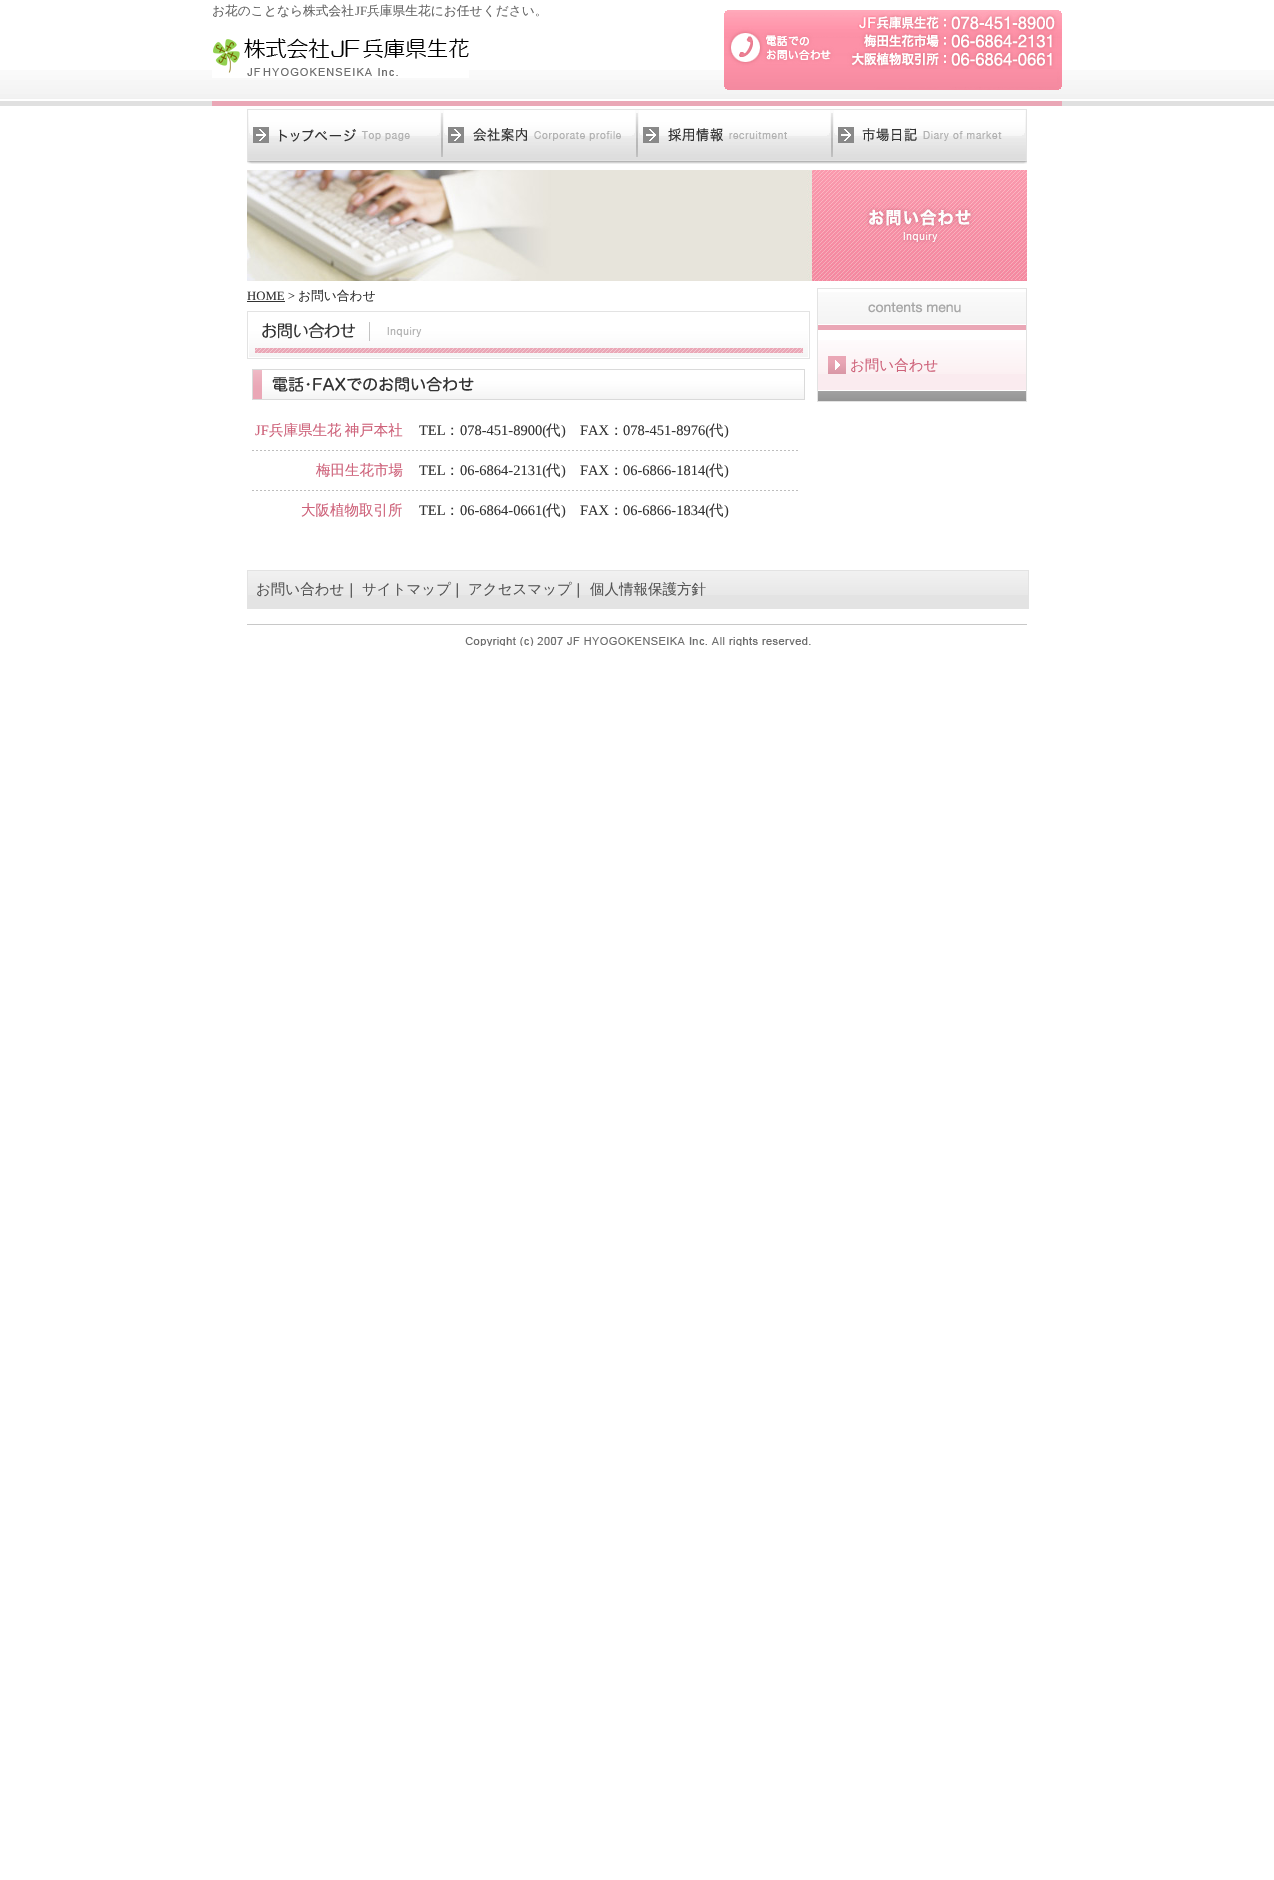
#include "include/core/SkBlurTypes.h"
#include "include/core/SkCanvas.h"
#include "include/core/SkData.h"
#include "include/core/SkFont.h"
#include "include/core/SkFontMgr.h"
#include "include/core/SkImage.h"
#include "include/core/SkMaskFilter.h"
#include "include/core/SkPaint.h"
#include "include/core/SkPathBuilder.h"
#include "include/core/SkTextBlob.h"
#include "include/effects/SkDashPathEffect.h"
#include "include/effects/SkGradientShader.h"
#include "include/utils/SkParsePath.h"

extern sk_sp<SkFontMgr> fontMgr;

void draw(SkCanvas* canvas) {
    SkPaint p;
    p.setAntiAlias(true);
    auto font = [&](const char* family, int weight, float size, bool italic = false) {
        SkFontStyle style(weight, SkFontStyle::kNormal_Width,
            italic ? SkFontStyle::kItalic_Slant : SkFontStyle::kUpright_Slant);
        SkFont result(fontMgr->matchFamilyStyle(family, style), size);
        result.setSubpixel(true);
        return result;
    };
    auto drawTracked = [&](const char* s, float x, float y, const SkFont& font, const SkPaint& ink, float letter, float word) {
        std::vector<SkGlyphID> glyphs(font.countText(s, strlen(s), SkTextEncoding::kUTF8));
        std::vector<float> xs(glyphs.size());
        font.textToGlyphs(s, strlen(s), SkTextEncoding::kUTF8, glyphs);
        font.getXPos(glyphs, xs, x);
        float extra = 0;
        for (size_t i = 0; i < glyphs.size(); i++) {
            xs[i] += extra;
            extra += letter + word * (glyphs[i] == font.unicharToGlyph(' '));
        }
        canvas->drawTextBlob(SkTextBlob::MakeFromPosHGlyphs(glyphs, xs, y, font), 0, 0, ink);
    };
    auto drawPhoto = [&](const char* path, float l, float t, float r, float b) {
        auto image = SkImages::DeferredFromEncodedData(SkData::MakeFromFileName(path));
        canvas->drawImageRect(image, SkRect::MakeLTRB(l, t, r, b), SkSamplingOptions());
    };
    canvas->clear(0xFFFFFFFF);
    drawPhoto("media/1.png", 0, 70, 1274, 106);
    p.setColor(0xFFEAA7B6);
    canvas->drawRect(SkRect::MakeLTRB(212, 101, 1062, 106), p);
    auto font1 = font("WenQuanYi Zen Hei", 500, 12.75f);
    p.setColor(0xFF666666);
    canvas->drawString("お花のことなら株式会社", 212, 15, font1, p);
    auto font2 = font("Liberation Serif", 400, 12.75f);
    canvas->drawString("JF", 355, 15, font2, p);
    canvas->drawString("兵庫県生花にお任せください。", 367, 15, font1, p);
    drawPhoto("media/2.png", 724, 10, 1062, 90);
    drawPhoto("media/3.png", 212, 38, 469, 78);
    drawPhoto("media/4.png", 247, 109, 441, 164);
    drawPhoto("media/5.png", 441, 109, 636, 164);
    drawPhoto("media/6.png", 636, 109, 831, 164);
    drawPhoto("media/7.png", 831, 109, 1027, 164);
    drawPhoto("media/8.png", 247, 170, 1027, 281);
    p.setColor(0xFF333333);
    canvas->drawString("HOME >", 247, 300, font2, p);
    canvas->drawRect(SkRect::MakeLTRB(247, 301, 285, 302), p);
    canvas->drawString("お問い合わせ", 298, 300, font1, p);
    drawPhoto("media/9.png", 247, 311, 810, 359);
    p.setStyle(SkPaint::kStroke_Style);
    p.setStrokeWidth(1);
    p.setColor(0xFFE3E3E3);
    canvas->drawRect(SkRect::MakeLTRB(817.5f, 288.5f, 1026.5f, 401.5f), p);
    p.setStyle(SkPaint::kFill_Style);
    p.setColor(0xFFEAA7B6);
    canvas->drawRect(SkRect::MakeLTRB(818, 325, 1026, 330), p);
    drawPhoto("media/10.png", 818, 292, 1026, 324);
    drawPhoto("media/11.png", 818, 391, 1026, 401);
    p.setColor(0xFFFAEBEF);
    canvas->drawRect(SkRect::MakeLTRB(818, 374, 1026, 390), p);
    drawPhoto("media/12.png", 818, 340, 1026, 374);
    drawPhoto("media/13.png", 828, 356, 846, 374);
    auto font3 = font("WenQuanYi Zen Hei", 500, 14.5f);
    p.setColor(0xFFCE627A);
    canvas->drawString("お問い合わせ", 850, 370, font3, p);
    drawPhoto("media/14.png", 252, 369, 805, 400);
    auto font4 = font("Liberation Serif", 400, 14.5f);
    canvas->drawString("JF", 255, 435, font4, p);
    drawTracked("兵庫県生花 神戸本社", 269, 435, font3, p, 0, -1);
    p.setColor(0xFF333333);
    canvas->drawString("TEL", 419, 435, font4, p);
    canvas->drawString("：", 445, 435, font3, p);
    canvas->drawString("078-451-8900(", 460, 435, font4, p);
    canvas->drawString("代", 546, 435, font3, p);
    canvas->drawString(")", 561, 435, font4, p);
    canvas->drawString("FAX", 580, 435, font4, p);
    canvas->drawString("：", 609, 435, font3, p);
    canvas->drawString("078-451-8976(", 623, 435, font4, p);
    canvas->drawString("代", 709, 435, font3, p);
    canvas->drawString(")", 724, 435, font4, p);
    drawPhoto("media/15.png", 252, 450, 402, 451);
    p.setColor(0xFFCE627A);
    canvas->drawString("梅田生花市場", 316, 475, font3, p);
    drawPhoto("media/16.png", 404, 450, 798, 451);
    p.setColor(0xFF333333);
    canvas->drawString("TEL", 419, 475, font4, p);
    canvas->drawString("：", 445, 475, font3, p);
    canvas->drawString("06-6864-2131(", 460, 475, font4, p);
    canvas->drawString("代", 546, 475, font3, p);
    canvas->drawString(")", 561, 475, font4, p);
    canvas->drawString("FAX", 580, 475, font4, p);
    canvas->drawString("：", 609, 475, font3, p);
    canvas->drawString("06-6866-1814(", 623, 475, font4, p);
    canvas->drawString("代", 709, 475, font3, p);
    canvas->drawString(")", 724, 475, font4, p);
    drawPhoto("media/15.png", 252, 490, 402, 491);
    p.setColor(0xFFCE627A);
    canvas->drawString("大阪植物取引所", 301, 515, font3, p);
    drawPhoto("media/16.png", 404, 490, 798, 491);
    p.setColor(0xFF333333);
    canvas->drawString("TEL", 419, 515, font4, p);
    canvas->drawString("：", 445, 515, font3, p);
    canvas->drawString("06-6864-0661(", 460, 515, font4, p);
    canvas->drawString("代", 546, 515, font3, p);
    canvas->drawString(")", 561, 515, font4, p);
    canvas->drawString("FAX", 580, 515, font4, p);
    canvas->drawString("：", 609, 515, font3, p);
    canvas->drawString("06-6866-1834(", 623, 515, font4, p);
    canvas->drawString("代", 709, 515, font3, p);
    canvas->drawString(")", 724, 515, font4, p);
    p.setColor(0xFFE3E3E3);
    canvas->drawRect(SkRect::MakeLTRB(248, 595, 1028, 608), p);
    drawPhoto("media/17.png", 248, 571, 1028, 595);
    p.setStyle(SkPaint::kStroke_Style);
    canvas->drawRect(SkRect::MakeLTRB(247.5f, 570.5f, 1028.5f, 608.5f), p);
    p.setStyle(SkPaint::kFill_Style);
    p.setColor(0xFF555555);
    canvas->drawString("お問い合わせ", 256, 594, font3, p);
    p.setColor(0xFF333333);
    canvas->drawString("｜", 344, 594, font3, p);
    p.setColor(0xFF555555);
    canvas->drawString("サイトマップ", 362, 594, font3, p);
    p.setColor(0xFF333333);
    canvas->drawString("｜", 450, 594, font3, p);
    p.setColor(0xFF555555);
    canvas->drawString("アクセスマップ", 468, 594, font3, p);
    p.setColor(0xFF333333);
    canvas->drawString("｜", 571, 594, font3, p);
    p.setColor(0xFF555555);
    canvas->drawString("個人情報保護方針", 590, 594, font3, p);
    p.setColor(0xFFC8C8C8);
    canvas->drawRect(SkRect::MakeLTRB(247, 624, 1027, 625), p);
    drawPhoto("media/18.png", 465, 637, 811, 646);
}
